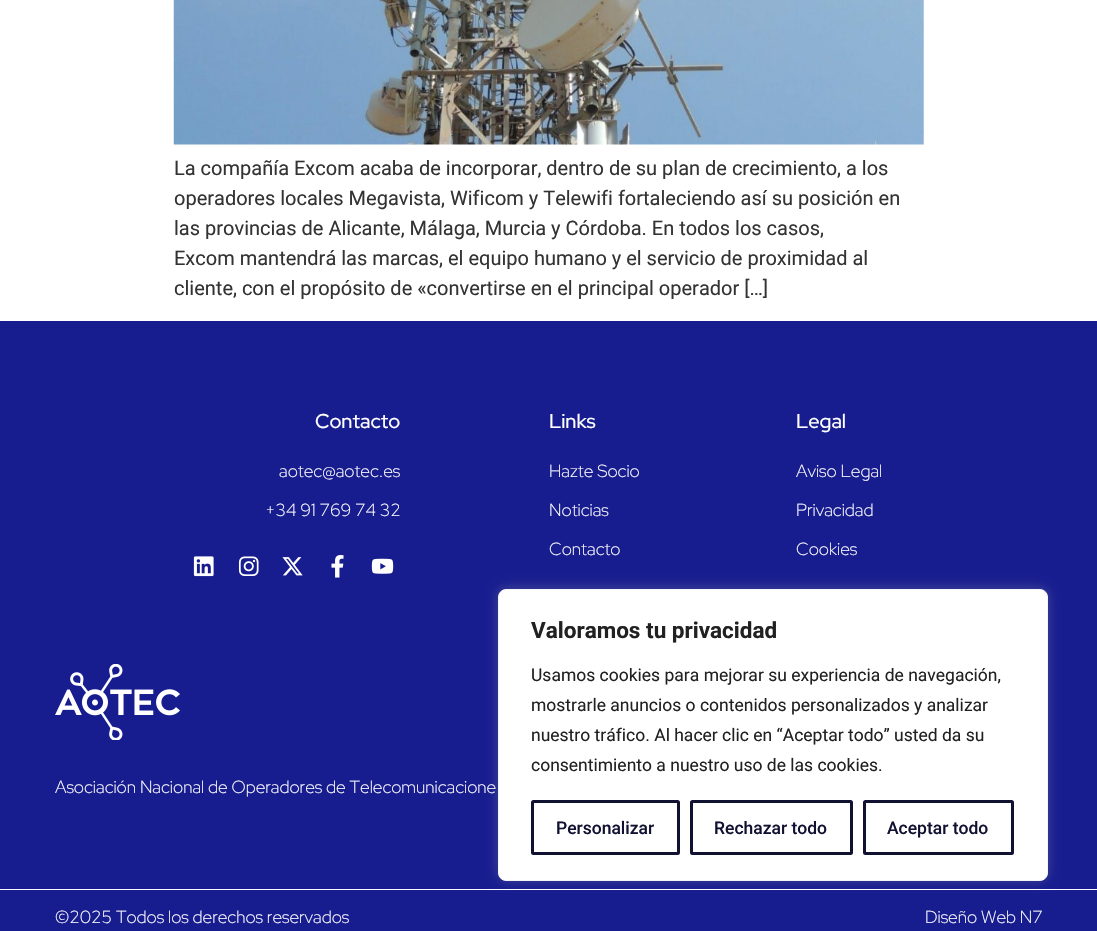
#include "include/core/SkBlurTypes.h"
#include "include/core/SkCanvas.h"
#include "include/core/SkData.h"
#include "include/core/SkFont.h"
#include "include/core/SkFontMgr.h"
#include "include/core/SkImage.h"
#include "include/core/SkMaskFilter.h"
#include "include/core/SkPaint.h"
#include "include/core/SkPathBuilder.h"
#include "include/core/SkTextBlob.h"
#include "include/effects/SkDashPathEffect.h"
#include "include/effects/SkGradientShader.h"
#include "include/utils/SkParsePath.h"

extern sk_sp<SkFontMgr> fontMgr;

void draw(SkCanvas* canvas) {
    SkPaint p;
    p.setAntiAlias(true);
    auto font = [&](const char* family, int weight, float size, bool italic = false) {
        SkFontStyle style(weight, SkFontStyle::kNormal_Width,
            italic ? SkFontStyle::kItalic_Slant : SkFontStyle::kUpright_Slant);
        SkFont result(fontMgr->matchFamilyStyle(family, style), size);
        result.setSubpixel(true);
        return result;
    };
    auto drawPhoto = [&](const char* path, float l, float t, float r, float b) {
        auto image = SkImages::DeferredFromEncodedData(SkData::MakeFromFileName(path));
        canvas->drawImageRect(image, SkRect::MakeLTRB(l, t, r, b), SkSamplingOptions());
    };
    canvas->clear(0xFFFFFFFF);
    drawPhoto("media/1.png", 173, 0, 924, 145);
    auto font1 = font("Roboto", 400, 20);
    p.setColor(0xFF333333);
    {
        const struct { const char* s; float x, y; } items[] = {
            {"La compañía Excom acaba de incorporar, dentro de su plan de crecimiento, a los", 174, 175},
            {"operadores locales Megavista, Wificom y Telewifi fortaleciendo así su posición en", 174, 205},
            {"las provincias de Alicante, Málaga, Murcia y Córdoba. En todos los casos,", 174, 235},
            {"Excom mantendrá las marcas, el equipo humano y el servicio de proximidad al", 174, 265},
            {"cliente, con el propósito de «convertirse en el principal operador […]", 174, 295},
        };
        for (auto [s, x, y] : items) {
            canvas->drawString(s, x, y, font1, p);
        }
    }
    p.setColor(0xFF171C8F);
    canvas->drawRect(SkRect::MakeLTRB(0, 321, 1097, 889), p);
    auto font2 = font("Red Hat Display", 500, 20);
    p.setColor(0xFFFFFFFF);
    canvas->drawString("Contacto", 315, 428, font2, p);
    auto font3 = font("Red Hat Display", 300, 17.5f);
    canvas->drawString("aotec@aotec.es", 279, 477, font3, p);
    canvas->drawString("+34 91 769 74 32", 265, 516, font3, p);
    drawPhoto("media/2.png", 193, 556, 214, 577);
    drawPhoto("media/3.png", 238, 556, 259, 576);
    drawPhoto("media/4.png", 282, 557, 303, 576);
    drawPhoto("media/5.png", 331, 555, 344, 578);
    drawPhoto("media/6.png", 371, 558, 394, 574);
    canvas->drawString("Links", 549, 428, font2, p);
    {
        const struct { const char* s; float x, y; } items[] = {
            {"Hazte Socio", 549, 477},
            {"Noticias", 549, 516},
            {"Contacto", 549, 555},
        };
        for (auto [s, x, y] : items) {
            canvas->drawString(s, x, y, font3, p);
        }
    }
    canvas->drawString("Legal", 796, 428, font2, p);
    {
        const struct { const char* s; float x, y; } items[] = {
            {"Aviso Legal", 796, 477},
            {"Privacidad", 796, 516},
            {"Cookies", 796, 555},
        };
        for (auto [s, x, y] : items) {
            canvas->drawString(s, x, y, font3, p);
        }
    }
    drawPhoto("media/7.png", 55, 664, 180, 740);
    canvas->drawString("Asociación Nacional de Operadores de Telecomunicacione", 55, 793, font3, p);
    p.setColor(0xFF171C8F);
    canvas->drawRect(SkRect::MakeLTRB(0, 890, 1097, 931), p);
    p.setColor(0xFFFFFFFF);
    canvas->drawString("©2025 Todos los derechos reservados", 55, 923, font3, p);
    canvas->drawString("Diseño Web N7", 925, 923, font3, p);
    p.setColor(0x4DACABAB);
    p.setMaskFilter(SkMaskFilter::MakeBlur(kNormal_SkBlurStyle, 6));
    canvas->drawRoundRect(SkRect::MakeLTRB(498, 588, 1048, 880), 8, 8, p);
    p.setMaskFilter(nullptr);
    p.setColor(0xFFFFFFFF);
    canvas->drawRoundRect(SkRect::MakeLTRB(498.5f, 589.5f, 1047.5f, 880.5f), 7.5f, 7.5f, p);
    p.setStyle(SkPaint::kStroke_Style);
    p.setStrokeWidth(1);
    p.setColor(0xFFF4F4F4);
    canvas->drawRoundRect(SkRect::MakeLTRB(498.5f, 589.5f, 1047.5f, 880.5f), 7.5f, 7.5f, p);
    auto font4 = font("Roboto", 700, 22.5f);
    p.setStyle(SkPaint::kFill_Style);
    p.setColor(0xFF212121);
    canvas->drawString("Valoramos tu privacidad", 531, 638, font4, p);
    auto font5 = font("Roboto", 400, 17.5f);
    {
        const struct { const char* s; float x, y; } items[] = {
            {"Usamos cookies para mejorar su experiencia de navegación,", 531, 681},
            {"mostrarle anuncios o contenidos personalizados y analizar", 531, 711},
            {"nuestro tráfico. Al hacer clic en “Aceptar todo” usted da su", 531, 741},
            {"consentimiento a nuestro uso de las cookies.", 531, 771},
        };
        for (auto [s, x, y] : items) {
            canvas->drawString(s, x, y, font5, p);
        }
    }
    p.setStyle(SkPaint::kStroke_Style);
    p.setStrokeWidth(3);
    p.setColor(0xFF111232);
    canvas->drawRoundRect(SkRect::MakeLTRB(532.5f, 801.5f, 678.5f, 853.5f), 1, 1, p);
    auto font6 = font("Roboto", 500, 17.5f);
    p.setStyle(SkPaint::kFill_Style);
    canvas->drawString("Personalizar", 556, 834, font6, p);
    p.setStyle(SkPaint::kStroke_Style);
    canvas->drawRoundRect(SkRect::MakeLTRB(691.5f, 801.5f, 851.5f, 853.5f), 1, 1, p);
    p.setStyle(SkPaint::kFill_Style);
    canvas->drawString("Rechazar todo", 714, 834, font6, p);
    p.setStyle(SkPaint::kStroke_Style);
    canvas->drawRoundRect(SkRect::MakeLTRB(864.5f, 801.5f, 1012.5f, 853.5f), 1, 1, p);
    p.setStyle(SkPaint::kFill_Style);
    canvas->drawString("Aceptar todo", 887, 834, font6, p);
}
